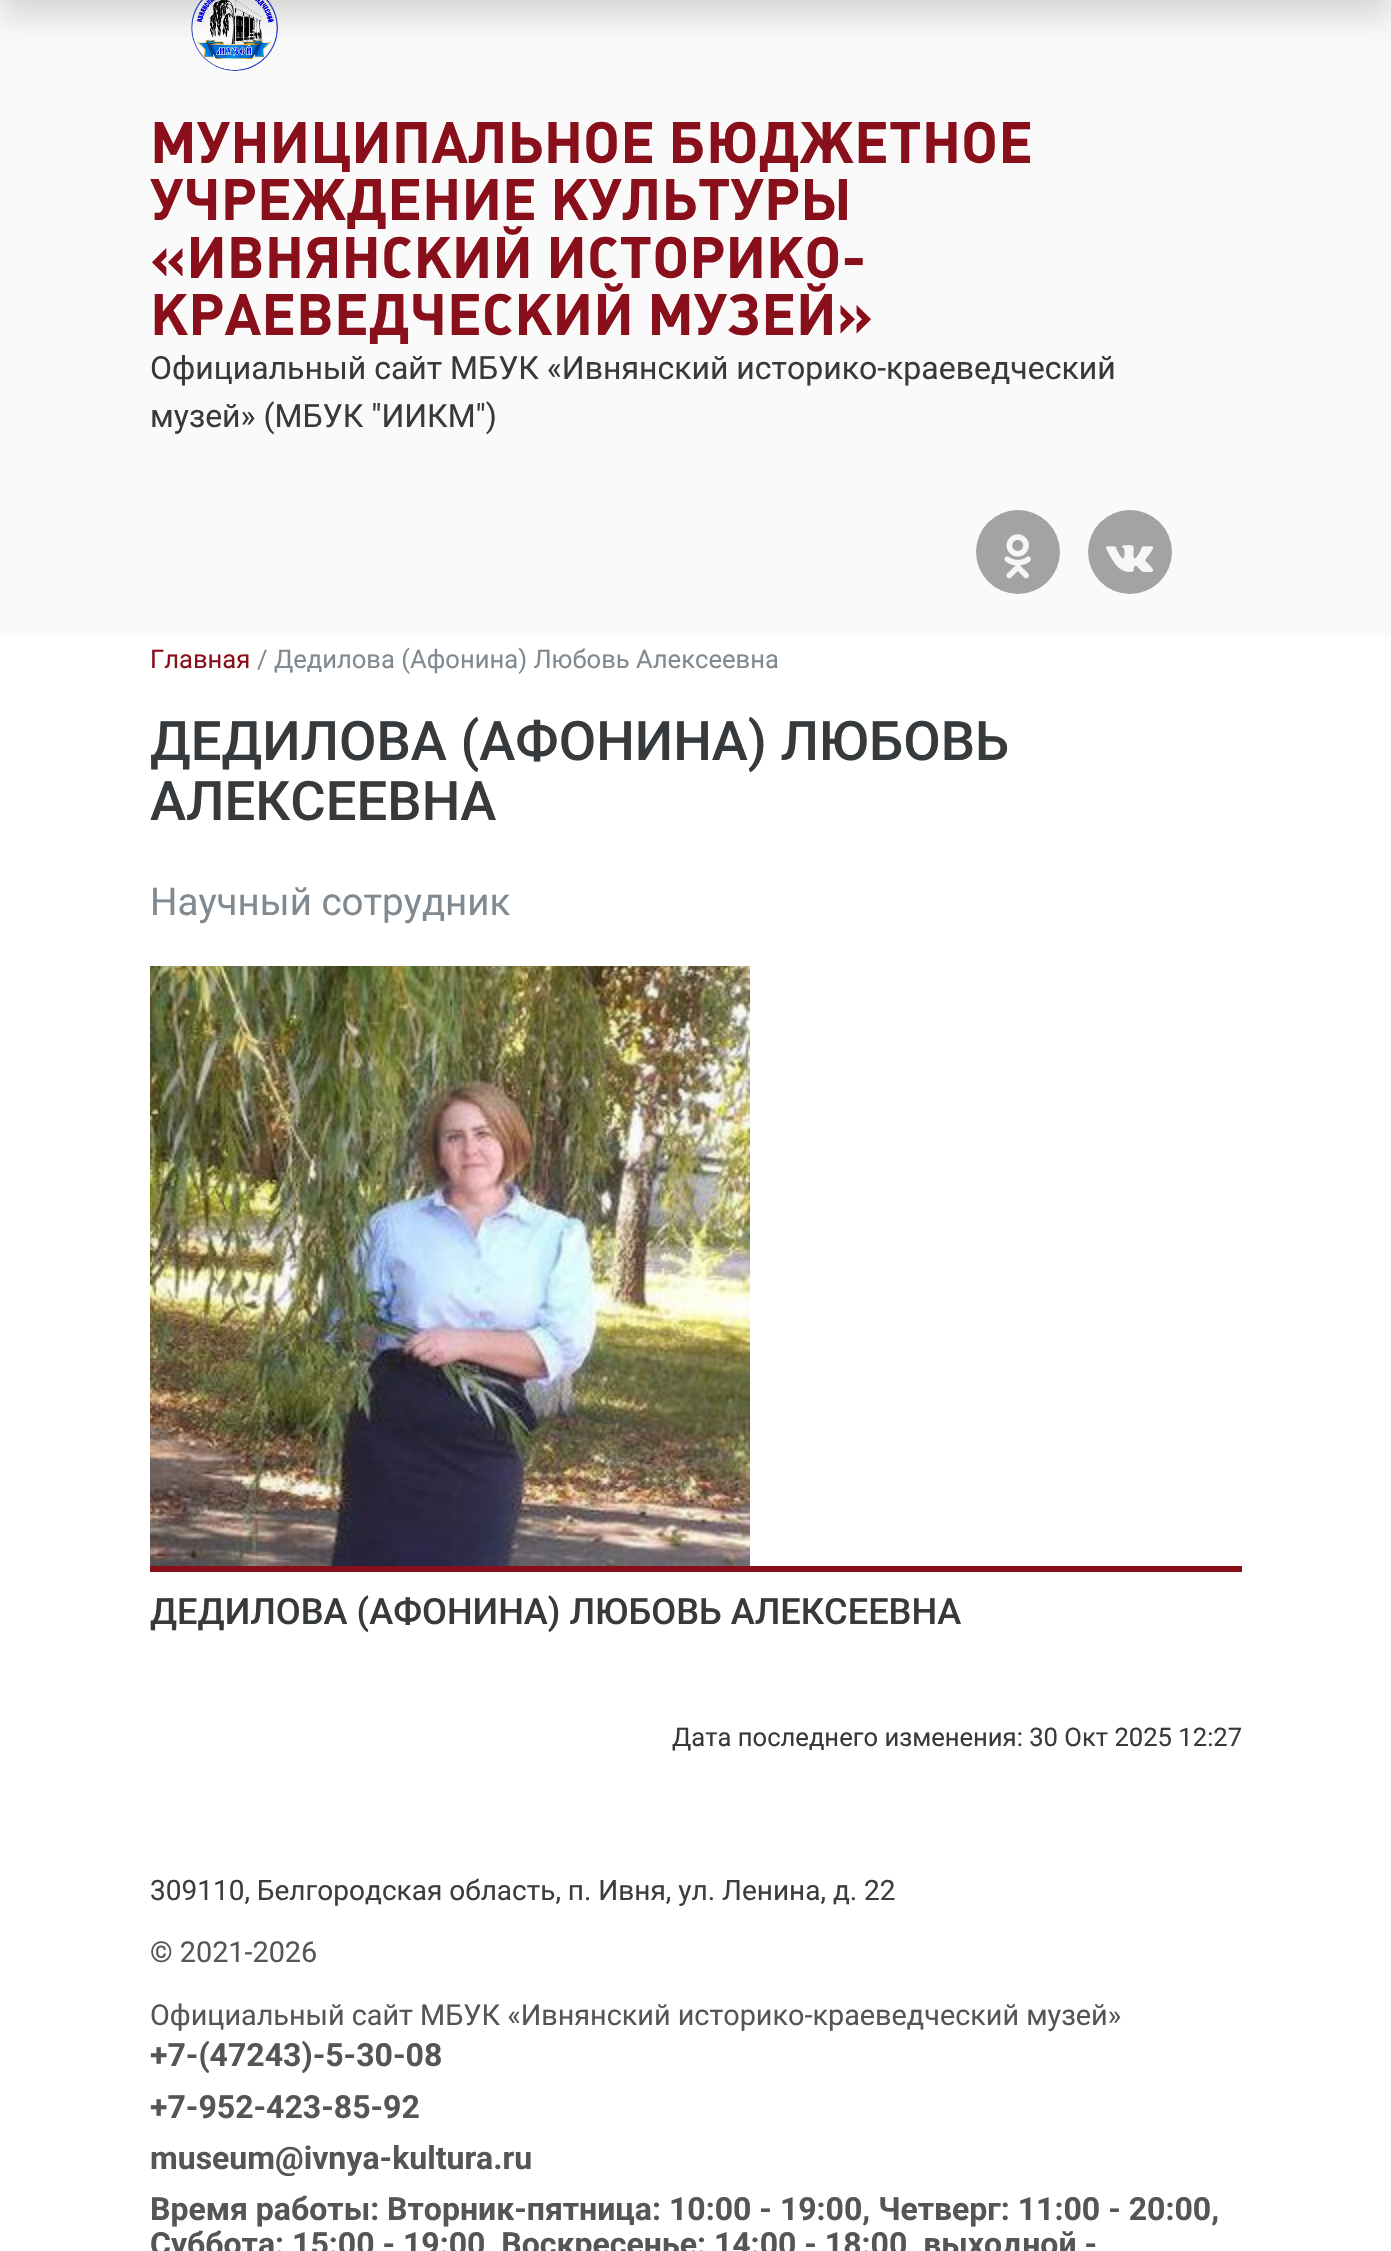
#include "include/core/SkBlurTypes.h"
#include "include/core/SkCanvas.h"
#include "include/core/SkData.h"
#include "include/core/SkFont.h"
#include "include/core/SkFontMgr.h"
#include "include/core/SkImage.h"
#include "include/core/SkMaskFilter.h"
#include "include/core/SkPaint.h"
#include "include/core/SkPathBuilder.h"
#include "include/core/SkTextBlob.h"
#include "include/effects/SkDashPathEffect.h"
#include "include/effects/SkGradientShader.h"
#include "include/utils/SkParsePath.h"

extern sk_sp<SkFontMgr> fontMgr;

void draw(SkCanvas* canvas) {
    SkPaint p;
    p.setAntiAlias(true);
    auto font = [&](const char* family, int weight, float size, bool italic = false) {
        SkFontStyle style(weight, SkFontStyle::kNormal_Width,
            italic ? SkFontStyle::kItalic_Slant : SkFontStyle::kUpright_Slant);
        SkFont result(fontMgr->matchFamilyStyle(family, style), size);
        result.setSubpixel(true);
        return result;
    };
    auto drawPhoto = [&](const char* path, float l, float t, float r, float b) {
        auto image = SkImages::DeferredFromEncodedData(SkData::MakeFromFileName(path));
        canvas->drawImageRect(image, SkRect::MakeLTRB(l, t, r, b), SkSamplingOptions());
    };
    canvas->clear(0xFFFFFFFF);
    p.setColor(0xFFFAFAFA);
    canvas->drawRect(SkRect::MakeLTRB(0, 0, 1391, 636), p);
    drawPhoto("media/1.png", 191, 0, 278, 71);
    p.setColor(0x26000000);
    p.setMaskFilter(SkMaskFilter::MakeBlur(kNormal_SkBlurStyle, 16));
    canvas->drawRect(SkRect::MakeLTRB(0, -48, 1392, 16), p);
    p.setMaskFilter(nullptr);
    auto font1 = font("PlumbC", 700, 57.6f);
    p.setColor(0xFF890F1A);
    {
        const struct { const char* s; float x, y; } items[] = {
            {"МУНИЦИПАЛЬНОЕ БЮДЖЕТНОЕ", 150, 163},
            {"УЧРЕЖДЕНИЕ КУЛЬТУРЫ", 150, 220},
            {"«ИВНЯНСКИЙ ИСТОРИКО-", 150, 278},
            {"КРАЕВЕДЧЕСКИЙ МУЗЕЙ»", 150, 335},
        };
        for (auto [s, x, y] : items) {
            canvas->drawString(s, x, y, font1, p);
        }
    }
    auto font2 = font("Roboto", 400, 32);
    p.setColor(0xFF373A3C);
    canvas->drawString("Официальный сайт МБУК «Ивнянский историко-краеведческий", 150, 379, font2, p);
    canvas->drawString("музей» (МБУК \"ИИКМ\")", 150, 427, font2, p);
    p.setColor(0xFFA3A3A3);
    canvas->drawCircle(1018, 552, 42, p);
    drawPhoto("media/2.png", 1004, 534, 1031, 579);
    canvas->drawCircle(1130, 552, 42, p);
    drawPhoto("media/3.png", 1106, 545, 1154, 572);
    auto font3 = font("Roboto", 400, 25.6f);
    p.setColor(0xFF890F1A);
    canvas->drawString("Главная", 150, 668, font3, p);
    p.setColor(0xFF818A91);
    canvas->drawString("/ Дедилова (Афонина) Любовь Алексеевна", 257, 668, font3, p);
    auto font4 = font("Roboto", 500, 54.4f);
    p.setColor(0xFF373A3C);
    canvas->drawString("ДЕДИЛОВА (АФОНИНА) ЛЮБОВЬ", 150, 760, font4, p);
    canvas->drawString("АЛЕКСЕЕВНА", 150, 820, font4, p);
    auto font5 = font("Roboto", 400, 38.5f);
    p.setColor(0xFF818A91);
    canvas->drawString("Научный сотрудник", 150, 915, font5, p);
    drawPhoto("media/4.png", 150, 966, 750, 1566);
    p.setColor(0xFF890F1A);
    canvas->drawRect(SkRect::MakeLTRB(150, 1566, 1242, 1572), p);
    auto font6 = font("Roboto", 500, 36.2f);
    p.setColor(0xFF373A3C);
    canvas->drawString("ДЕДИЛОВА (АФОНИНА) ЛЮБОВЬ АЛЕКСЕЕВНА", 150, 1624, font6, p);
    canvas->drawString("Дата последнего изменения: 30 Окт 2025 12:27", 672, 1746, font3, p);
    auto font7 = font("Roboto", 400, 28);
    p.setColor(0xFF3D3D3D);
    canvas->drawString("309110, Белгородская область, п. Ивня, ул. Ленина, д. 22", 150, 1900, font7, p);
    auto font8 = font("Roboto", 400, 28.8f);
    p.setColor(0xFF555555);
    canvas->drawString("© 2021-2026", 150, 1962, font8, p);
    canvas->drawString("Официальный сайт МБУК «Ивнянский историко-краеведческий музей»", 150, 2025, font8, p);
    auto font9 = font("Roboto", 700, 32);
    {
        const struct { const char* s; float x, y; } items[] = {
            {"+7-(47243)-5-30-08", 150, 2066},
            {"+7-952-423-85-92", 150, 2118},
            {"museum@ivnya-kultura.ru", 150, 2169},
            {"Время работы: Вторник-пятница: 10:00 - 19:00, Четверг: 11:00 - 20:00,", 150, 2220},
            {"Суббота: 15:00 - 19:00, Воскресенье: 14:00 - 18:00, выходной -", 150, 2255},
        };
        for (auto [s, x, y] : items) {
            canvas->drawString(s, x, y, font9, p);
        }
    }
}
